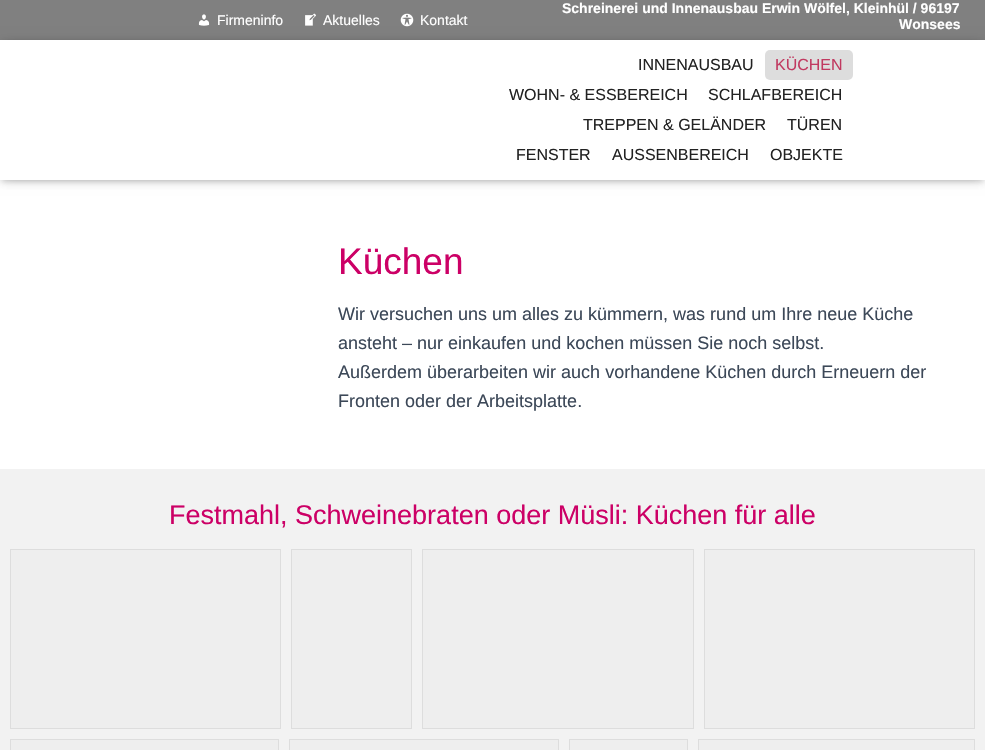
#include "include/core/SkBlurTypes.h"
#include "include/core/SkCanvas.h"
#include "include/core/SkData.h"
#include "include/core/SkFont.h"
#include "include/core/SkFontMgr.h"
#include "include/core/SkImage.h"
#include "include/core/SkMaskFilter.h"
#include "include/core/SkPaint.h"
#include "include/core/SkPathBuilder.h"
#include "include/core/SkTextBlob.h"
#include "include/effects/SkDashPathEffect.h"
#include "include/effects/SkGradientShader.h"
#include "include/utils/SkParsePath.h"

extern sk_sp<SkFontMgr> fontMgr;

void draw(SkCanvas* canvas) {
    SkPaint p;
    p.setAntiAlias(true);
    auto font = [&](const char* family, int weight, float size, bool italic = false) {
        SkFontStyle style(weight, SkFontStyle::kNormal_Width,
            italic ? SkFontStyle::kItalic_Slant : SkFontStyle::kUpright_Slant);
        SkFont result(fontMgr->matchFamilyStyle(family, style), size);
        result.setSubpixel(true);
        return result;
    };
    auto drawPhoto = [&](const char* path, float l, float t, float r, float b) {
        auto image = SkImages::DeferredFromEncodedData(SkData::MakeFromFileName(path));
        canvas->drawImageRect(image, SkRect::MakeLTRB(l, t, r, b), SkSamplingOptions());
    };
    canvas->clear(0xFF808080);
    drawPhoto("media/1.png", 198, 14, 210, 26);
    auto font1 = font("Liberation Sans", 400, 14);
    p.setColor(0xFFFFFFFF);
    canvas->drawString("Firmeninfo", 217, 25, font1, p);
    drawPhoto("media/2.png", 305, 13, 316, 26);
    canvas->drawString("Aktuelles", 323, 25, font1, p);
    drawPhoto("media/3.png", 400, 13, 414, 27);
    canvas->drawString("Kontakt", 420, 25, font1, p);
    auto font2 = font("Liberation Sans", 700, 14);
    canvas->drawString("Schreinerei und Innenausbau Erwin Wölfel, Kleinhül / 96197", 562, 13, font2, p);
    canvas->drawString("Wonsees", 899, 29, font2, p);
    canvas->drawRect(SkRect::MakeLTRB(0, 180, 985, 469), p);
    p.setColor(0x1A000000);
    p.setMaskFilter(SkMaskFilter::MakeBlur(kNormal_SkBlurStyle, 2.5f));
    canvas->drawRect(SkRect::MakeLTRB(2, 46, 983, 182), p);
    p.setMaskFilter(nullptr);
    p.setColor(0x1F000000);
    p.setMaskFilter(SkMaskFilter::MakeBlur(kNormal_SkBlurStyle, 5));
    canvas->drawRect(SkRect::MakeLTRB(0, 41, 985, 181), p);
    p.setMaskFilter(nullptr);
    p.setColor(0x6B000000);
    p.setMaskFilter(SkMaskFilter::MakeBlur(kNormal_SkBlurStyle, 5));
    canvas->drawRect(SkRect::MakeLTRB(6, 47, 979, 175), p);
    p.setMaskFilter(nullptr);
    p.setColor(0xFFFFFFFF);
    canvas->drawRect(SkRect::MakeLTRB(0, 40, 985, 180), p);
    auto font3 = font("Liberation Sans", 400, 16);
    p.setColor(0xFF222222);
    canvas->drawString("INNENAUSBAU", 638, 70, font3, p);
    p.setColor(0xFFDDDDDD);
    canvas->drawRoundRect(SkRect::MakeLTRB(765, 50, 853, 80), 5, 5, p);
    p.setColor(0xFFC13960);
    canvas->drawString("KÜCHEN", 775, 70, font3, p);
    p.setColor(0xFF222222);
    {
        const struct { const char* s; float x, y; } items[] = {
            {"WOHN- & ESSBEREICH", 509, 100},
            {"SCHLAFBEREICH", 708, 100},
            {"TREPPEN & GELÄNDER", 583, 130},
            {"TÜREN", 787, 130},
            {"FENSTER", 516, 160},
            {"AUSSENBEREICH", 612, 160},
            {"OBJEKTE", 770, 160},
        };
        for (auto [s, x, y] : items) {
            canvas->drawString(s, x, y, font3, p);
        }
    }
    auto font4 = font("Liberation Sans", 400, 37);
    p.setColor(0xFFCC0066);
    canvas->drawString("Küchen", 338, 274, font4, p);
    auto font5 = font("Liberation Sans", 400, 18);
    p.setColor(0xFF3C4858);
    {
        const struct { const char* s; float x, y; } items[] = {
            {"Wir versuchen uns um alles zu kümmern, was rund um Ihre neue Küche", 338, 320},
            {"ansteht – nur einkaufen und kochen müssen Sie noch selbst.", 338, 349},
            {"Außerdem überarbeiten wir auch vorhandene Küchen durch Erneuern der", 338, 378},
            {"Fronten oder der Arbeitsplatte.", 338, 407},
        };
        for (auto [s, x, y] : items) {
            canvas->drawString(s, x, y, font5, p);
        }
    }
    p.setColor(0xFFF2F2F2);
    canvas->drawRect(SkRect::MakeLTRB(0, 469, 985, 750), p);
    auto font6 = font("Liberation Sans", 400, 27);
    p.setColor(0xFFCC0066);
    canvas->drawString("Festmahl, Schweinebraten oder Müsli: Küchen für alle", 169, 524, font6, p);
    p.setColor(0xFFEEEEEE);
    canvas->drawRect(SkRect::MakeLTRB(10.5f, 549.5f, 280.5f, 728.5f), p);
    p.setStyle(SkPaint::kStroke_Style);
    p.setStrokeWidth(1);
    p.setColor(0xFFDDDDDD);
    canvas->drawRect(SkRect::MakeLTRB(10.5f, 549.5f, 280.5f, 728.5f), p);
    p.setStyle(SkPaint::kFill_Style);
    p.setColor(0xFFEEEEEE);
    canvas->drawRect(SkRect::MakeLTRB(291.5f, 549.5f, 411.5f, 728.5f), p);
    p.setStyle(SkPaint::kStroke_Style);
    p.setColor(0xFFDDDDDD);
    canvas->drawRect(SkRect::MakeLTRB(291.5f, 549.5f, 411.5f, 728.5f), p);
    p.setStyle(SkPaint::kFill_Style);
    p.setColor(0xFFEEEEEE);
    canvas->drawRect(SkRect::MakeLTRB(422.5f, 549.5f, 693.5f, 728.5f), p);
    p.setStyle(SkPaint::kStroke_Style);
    p.setColor(0xFFDDDDDD);
    canvas->drawRect(SkRect::MakeLTRB(422.5f, 549.5f, 693.5f, 728.5f), p);
    p.setStyle(SkPaint::kFill_Style);
    p.setColor(0xFFEEEEEE);
    canvas->drawRect(SkRect::MakeLTRB(704.5f, 549.5f, 974.5f, 728.5f), p);
    p.setStyle(SkPaint::kStroke_Style);
    p.setColor(0xFFDDDDDD);
    canvas->drawRect(SkRect::MakeLTRB(704.5f, 549.5f, 974.5f, 728.5f), p);
    p.setStyle(SkPaint::kFill_Style);
    p.setColor(0xFFEEEEEE);
    canvas->drawRect(SkRect::MakeLTRB(10.5f, 739.5f, 278.5f, 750.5f), p);
    p.setStyle(SkPaint::kStroke_Style);
    p.setColor(0xFFDDDDDD);
    canvas->drawRect(SkRect::MakeLTRB(10.5f, 739.5f, 278.5f, 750.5f), p);
    p.setStyle(SkPaint::kFill_Style);
    p.setColor(0xFFEEEEEE);
    canvas->drawRect(SkRect::MakeLTRB(289.5f, 739.5f, 558.5f, 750.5f), p);
    p.setStyle(SkPaint::kStroke_Style);
    p.setColor(0xFFDDDDDD);
    canvas->drawRect(SkRect::MakeLTRB(289.5f, 739.5f, 558.5f, 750.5f), p);
    p.setStyle(SkPaint::kFill_Style);
    p.setColor(0xFFEEEEEE);
    canvas->drawRect(SkRect::MakeLTRB(569.5f, 739.5f, 687.5f, 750.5f), p);
    p.setStyle(SkPaint::kStroke_Style);
    p.setColor(0xFFDDDDDD);
    canvas->drawRect(SkRect::MakeLTRB(569.5f, 739.5f, 687.5f, 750.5f), p);
    p.setStyle(SkPaint::kFill_Style);
    p.setColor(0xFFEEEEEE);
    canvas->drawRect(SkRect::MakeLTRB(698.5f, 739.5f, 974.5f, 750.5f), p);
    p.setStyle(SkPaint::kStroke_Style);
    p.setColor(0xFFDDDDDD);
    canvas->drawRect(SkRect::MakeLTRB(698.5f, 739.5f, 974.5f, 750.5f), p);
}
